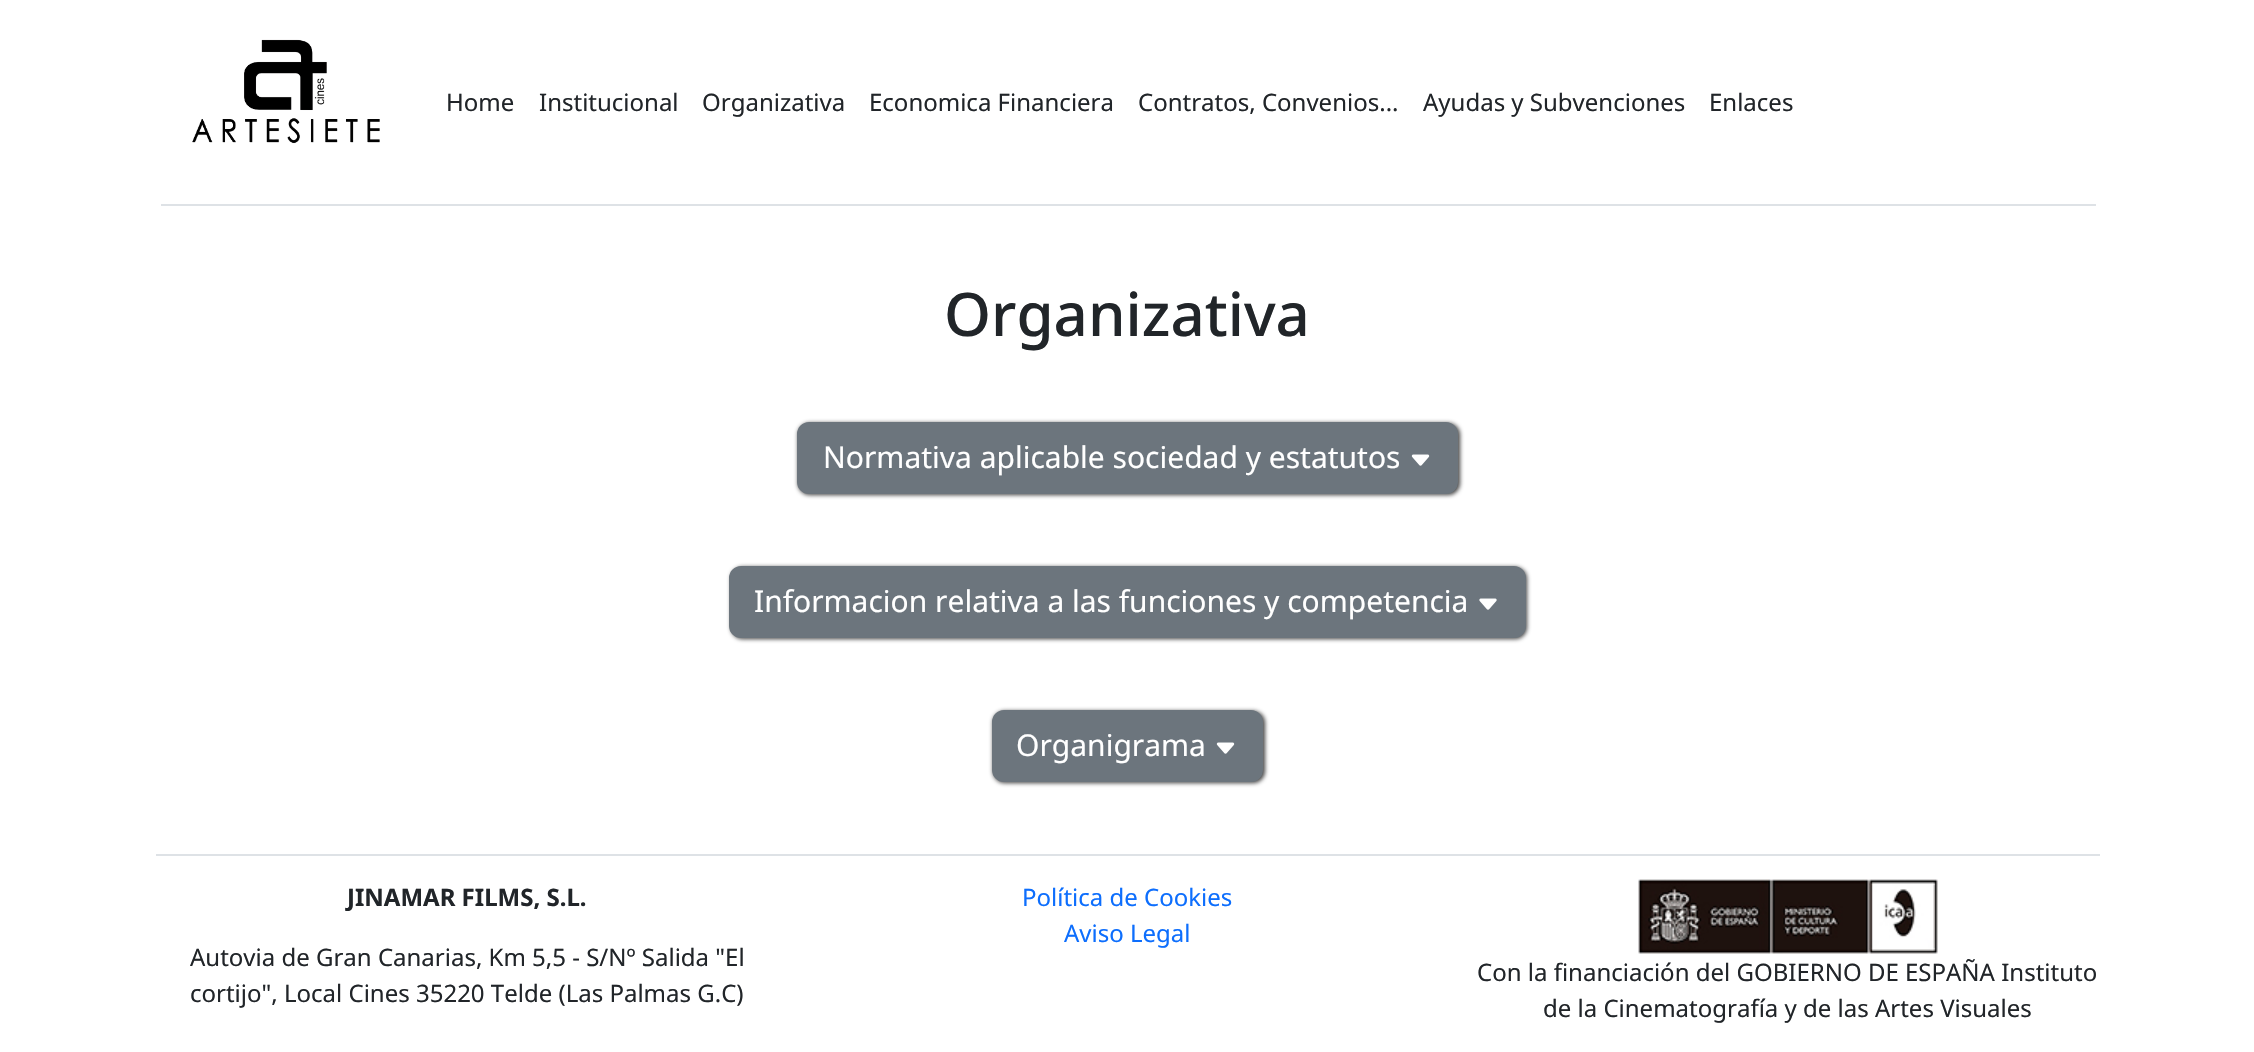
#include "include/core/SkBlurTypes.h"
#include "include/core/SkCanvas.h"
#include "include/core/SkData.h"
#include "include/core/SkFont.h"
#include "include/core/SkFontMgr.h"
#include "include/core/SkImage.h"
#include "include/core/SkMaskFilter.h"
#include "include/core/SkPaint.h"
#include "include/core/SkPathBuilder.h"
#include "include/core/SkTextBlob.h"
#include "include/effects/SkDashPathEffect.h"
#include "include/effects/SkGradientShader.h"
#include "include/utils/SkParsePath.h"

extern sk_sp<SkFontMgr> fontMgr;

void draw(SkCanvas* canvas) {
    SkPaint p;
    p.setAntiAlias(true);
    auto font = [&](const char* family, int weight, float size, bool italic = false) {
        SkFontStyle style(weight, SkFontStyle::kNormal_Width,
            italic ? SkFontStyle::kItalic_Slant : SkFontStyle::kUpright_Slant);
        SkFont result(fontMgr->matchFamilyStyle(family, style), size);
        result.setSubpixel(true);
        return result;
    };
    auto drawPhoto = [&](const char* path, float l, float t, float r, float b) {
        auto image = SkImages::DeferredFromEncodedData(SkData::MakeFromFileName(path));
        canvas->drawImageRect(image, SkRect::MakeLTRB(l, t, r, b), SkSamplingOptions());
    };
    canvas->clear(0xFFFFFFFF);
    p.setColor(0xFFDEE2E6);
    canvas->drawRect(SkRect::MakeLTRB(161, 204, 2096, 206), p);
    drawPhoto("media/1.png", 192, 39, 380, 144);
    auto font1 = font("Noto Sans", 400, 24);
    p.setColor(0xFF212529);
    {
        const struct { const char* s; float x, y; } items[] = {
            {"Home", 446, 111},
            {"Institucional", 539, 111},
            {"Organizativa", 702, 111},
            {"Economica Financiera", 869, 111},
            {"Contratos, Convenios...", 1138, 111},
            {"Ayudas y Subvenciones", 1423, 111},
            {"Enlaces", 1709, 111},
        };
        for (auto [s, x, y] : items) {
            canvas->drawString(s, x, y, font1, p);
        }
    }
    auto font2 = font("Noto Sans", 500, 60);
    canvas->drawString("Organizativa", 944, 336, font2, p);
    p.setColor(0xBF000000);
    p.setMaskFilter(SkMaskFilter::MakeBlur(kNormal_SkBlurStyle, 2));
    canvas->drawRoundRect(SkRect::MakeLTRB(798, 423, 1460, 495), 12, 12, p);
    p.setMaskFilter(nullptr);
    p.setColor(0xFF6C757D);
    canvas->drawRoundRect(SkRect::MakeLTRB(798, 423, 1457, 493), 11, 11, p);
    p.setStyle(SkPaint::kStroke_Style);
    p.setStrokeWidth(2);
    canvas->drawRoundRect(SkRect::MakeLTRB(798, 423, 1457, 493), 11, 11, p);
    auto font3 = font("Noto Sans", 400, 30);
    p.setStyle(SkPaint::kFill_Style);
    p.setColor(0xFFFFFFFF);
    canvas->drawString("Normativa aplicable sociedad y estatutos", 823, 468, font3, p);
    drawPhoto("media/2.png", 1411, 454, 1430, 466);
    p.setColor(0xBF000000);
    p.setMaskFilter(SkMaskFilter::MakeBlur(kNormal_SkBlurStyle, 2));
    canvas->drawRoundRect(SkRect::MakeLTRB(731, 567, 1527, 639), 12, 12, p);
    p.setMaskFilter(nullptr);
    p.setColor(0xFF6C757D);
    canvas->drawRoundRect(SkRect::MakeLTRB(730, 567, 1525, 637), 11, 11, p);
    p.setStyle(SkPaint::kStroke_Style);
    canvas->drawRoundRect(SkRect::MakeLTRB(730, 567, 1525, 637), 11, 11, p);
    p.setStyle(SkPaint::kFill_Style);
    p.setColor(0xFFFFFFFF);
    canvas->drawString("Informacion relativa a las funciones y competencia", 754, 612, font3, p);
    drawPhoto("media/3.png", 1479, 598, 1497, 610);
    p.setColor(0xBF000000);
    p.setMaskFilter(SkMaskFilter::MakeBlur(kNormal_SkBlurStyle, 2));
    canvas->drawRoundRect(SkRect::MakeLTRB(993, 711, 1265, 783), 12, 12, p);
    p.setMaskFilter(nullptr);
    p.setColor(0xFF6C757D);
    canvas->drawRoundRect(SkRect::MakeLTRB(993, 711, 1262, 781), 11, 11, p);
    p.setStyle(SkPaint::kStroke_Style);
    canvas->drawRoundRect(SkRect::MakeLTRB(993, 711, 1262, 781), 11, 11, p);
    p.setStyle(SkPaint::kFill_Style);
    p.setColor(0xFFFFFFFF);
    canvas->drawString("Organigrama", 1016, 756, font3, p);
    drawPhoto("media/2.png", 1216, 742, 1235, 754);
    p.setColor(0xFFDEE2E6);
    canvas->drawRect(SkRect::MakeLTRB(156, 854, 2100, 856), p);
    auto font4 = font("Noto Sans", 700, 24);
    p.setColor(0xFF212529);
    canvas->drawString("JINAMAR FILMS, S.L.", 347, 906, font4, p);
    canvas->drawString("Autovia de Gran Canarias, Km 5,5 - S/Nº Salida \"El", 190, 966, font1, p);
    canvas->drawString("cortijo\", Local Cines 35220 Telde (Las Palmas G.C)", 190, 1002, font1, p);
    p.setColor(0xFF0D6EFD);
    canvas->drawString("Política de Cookies", 1022, 906, font1, p);
    canvas->drawString("Aviso Legal", 1064, 942, font1, p);
    drawPhoto("media/4.png", 1638, 879, 1938, 954);
    p.setColor(0xFF212529);
    canvas->drawString("Con la financiación del GOBIERNO DE ESPAÑA Instituto", 1477, 981, font1, p);
    canvas->drawString("de la Cinematografía y de las Artes Visuales", 1543, 1017, font1, p);
}
